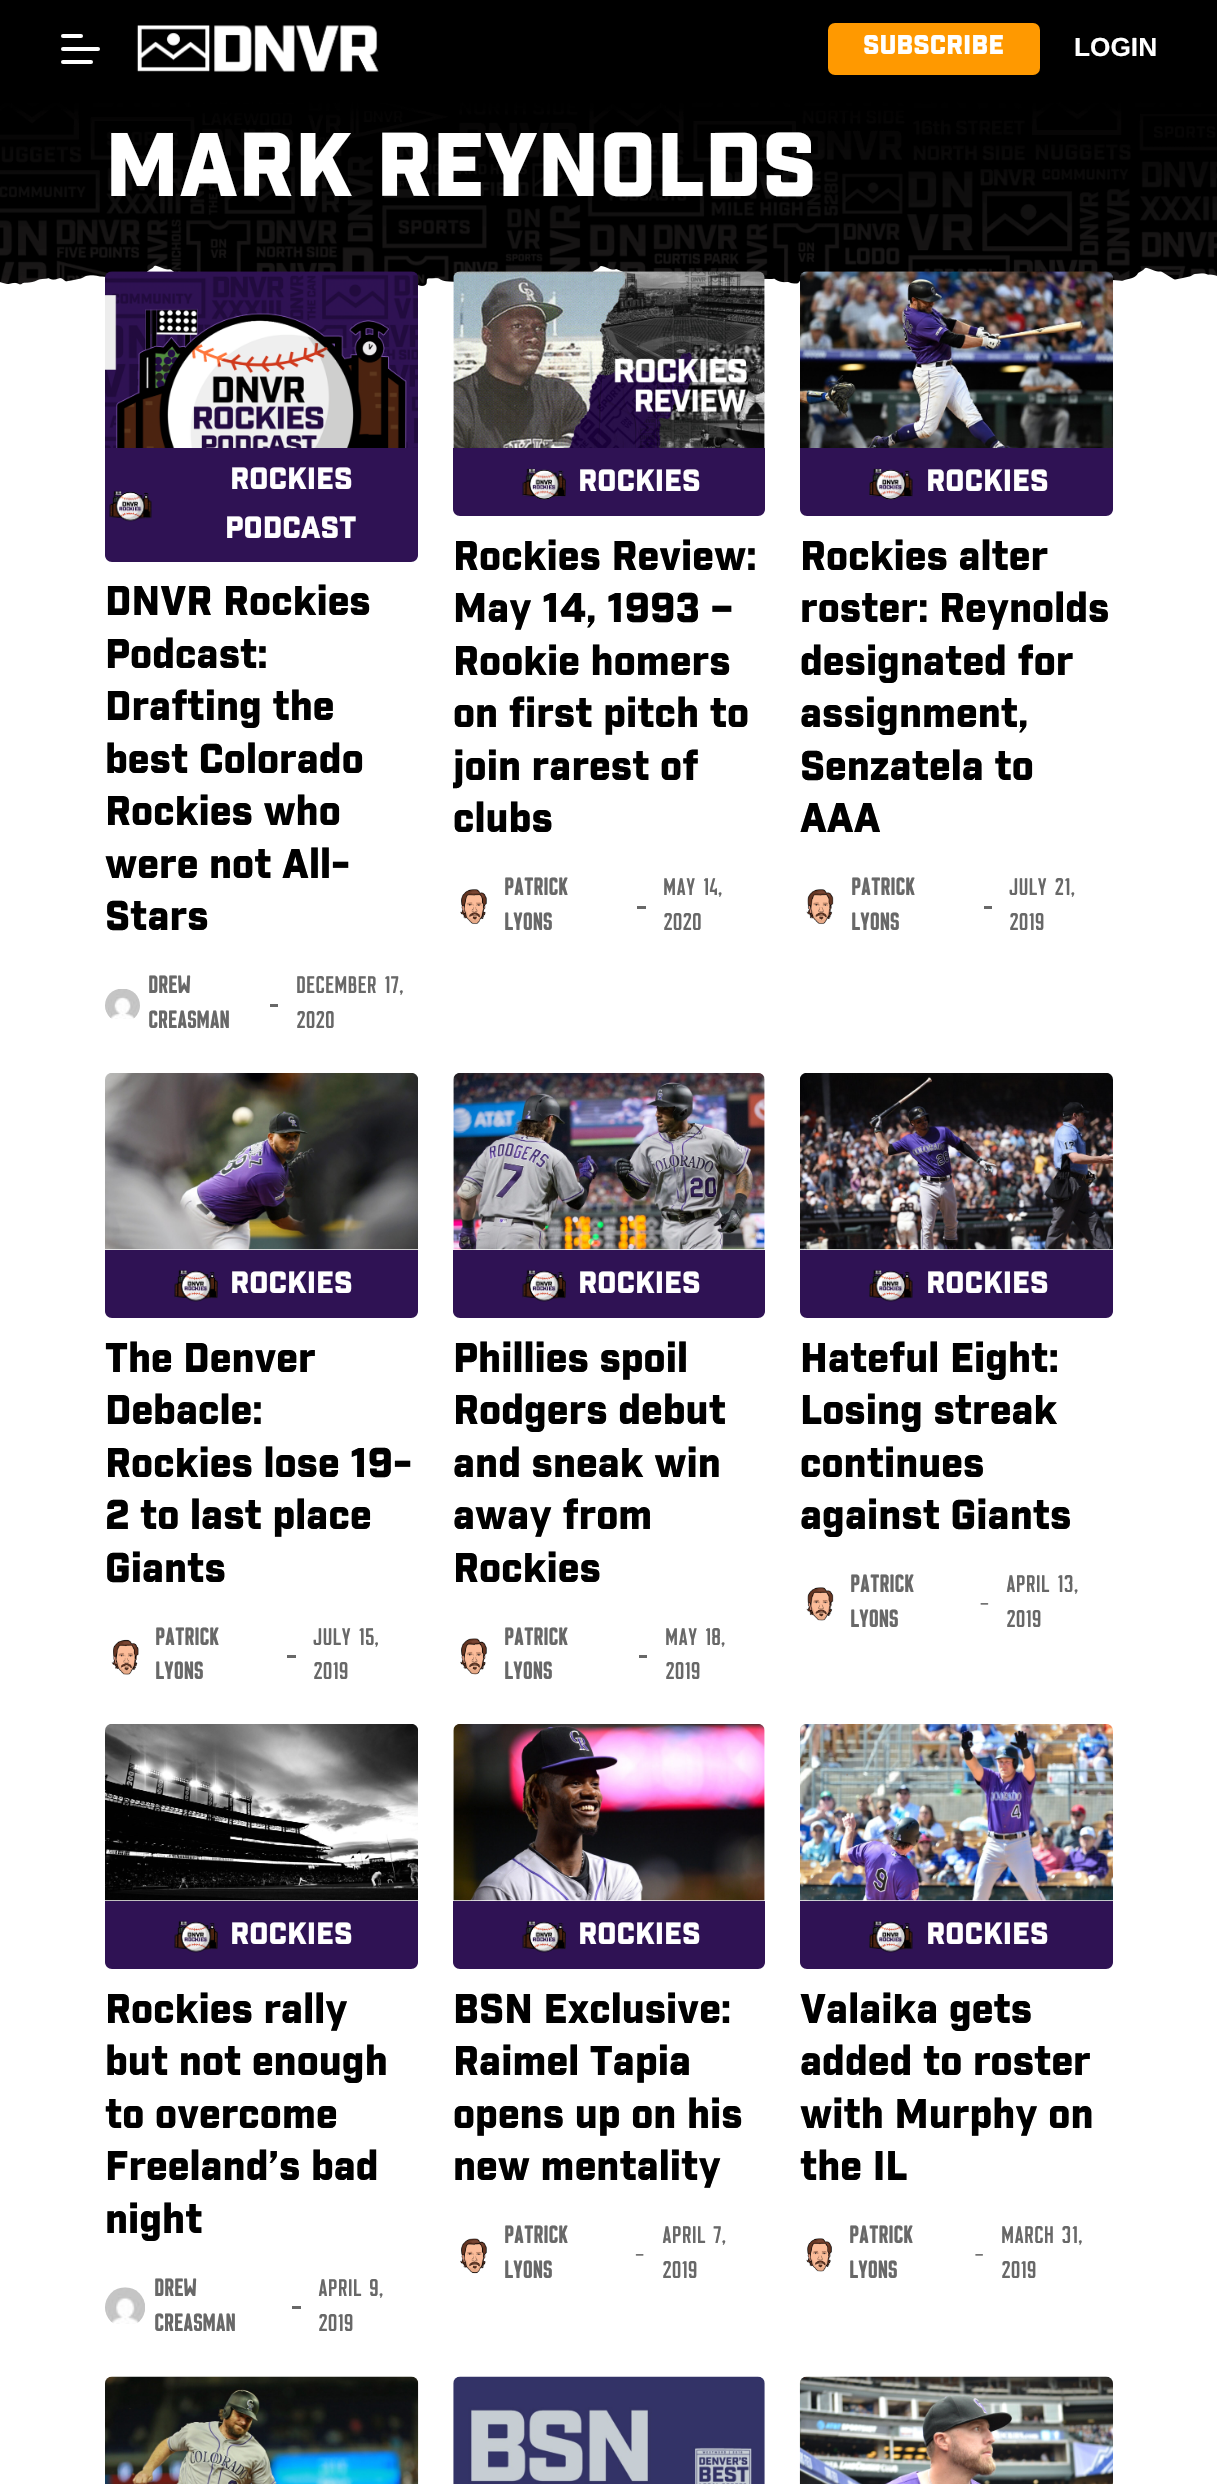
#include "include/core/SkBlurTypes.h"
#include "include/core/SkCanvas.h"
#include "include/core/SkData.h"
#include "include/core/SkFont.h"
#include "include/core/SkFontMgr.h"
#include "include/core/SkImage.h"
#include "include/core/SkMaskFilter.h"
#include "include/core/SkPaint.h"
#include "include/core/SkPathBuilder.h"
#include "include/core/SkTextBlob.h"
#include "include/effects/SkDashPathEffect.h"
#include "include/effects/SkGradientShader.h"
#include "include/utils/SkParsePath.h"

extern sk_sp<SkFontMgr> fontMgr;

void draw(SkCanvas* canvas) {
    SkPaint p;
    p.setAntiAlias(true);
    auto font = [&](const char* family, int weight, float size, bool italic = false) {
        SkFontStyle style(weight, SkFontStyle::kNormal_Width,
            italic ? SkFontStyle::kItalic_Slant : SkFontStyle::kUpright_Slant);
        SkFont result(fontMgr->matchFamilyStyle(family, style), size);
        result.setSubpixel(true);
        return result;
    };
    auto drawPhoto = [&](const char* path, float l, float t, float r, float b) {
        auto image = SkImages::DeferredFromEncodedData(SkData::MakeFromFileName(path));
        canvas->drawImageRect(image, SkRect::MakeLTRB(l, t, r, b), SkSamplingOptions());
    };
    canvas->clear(0xFFFFFFFF);
    p.setColor(0xFF000000);
    canvas->drawRect(SkRect::MakeLTRB(0, 0, 1217, 96), p);
    p.setColor(0xFFFFFFFF);
    canvas->drawRoundRect(SkRect::MakeLTRB(61, 34, 83, 38), 2, 2, p);
    canvas->drawRoundRect(SkRect::MakeLTRB(61, 47, 100, 51), 2, 2, p);
    canvas->drawRoundRect(SkRect::MakeLTRB(61, 60, 93, 64), 2, 2, p);
    drawPhoto("media/1.png", 136, 25, 379, 72);
    p.setColor(0xFFFF9900);
    canvas->drawRoundRect(SkRect::MakeLTRB(828, 23, 1040, 75), 7, 7, p);
    auto font1 = font("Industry", 900, 26.25f);
    p.setColor(0xFFFFFFFF);
    canvas->drawString("SUBSCRIBE", 863, 54, font1, p);
    auto font2 = font("Liberation Sans", 700, 26.25f);
    canvas->drawString("LOGIN", 1074, 56, font2, p);
    drawPhoto("media/2.png", 0, 96, 1217, 287);
    auto font3 = font("Industry", 900, 87.5f);
    canvas->drawString("MARK REYNOLDS", 105, 196, font3, p);
    drawPhoto("media/3.png", 0, 265, 1217, 305);
    drawPhoto("media/4.png", 105, 271, 418, 448);
    p.setColor(0xFF2F1254);
    canvas->drawPath(SkPathBuilder().moveTo(105, 448).lineTo(418, 448).lineTo(418, 555).cubicTo(418, 559, 415, 562, 411, 562).lineTo(112, 562).cubicTo(108, 562, 105, 559, 105, 555).close().detach(), p);
    auto font4 = font("Industry", 900, 29.75f);
    p.setColor(0xFFFFFFFF);
    canvas->drawString("ROCKIES", 230, 489, font4, p);
    drawPhoto("media/5.png", 109, 490, 152, 522);
    canvas->drawString("PODCAST", 225, 538, font4, p);
    auto font5 = font("Industry", 900, 40.25f);
    p.setColor(0xFF000000);
    {
        const struct { const char* s; float x, y; } items[] = {
            {"DNVR Rockies", 105, 615},
            {"Podcast:", 105, 668},
            {"Drafting the", 105, 720},
            {"best Colorado", 105, 773},
            {"Rockies who", 105, 825},
            {"were not All-", 105, 878},
            {"Stars", 105, 930},
        };
        for (auto [s, x, y] : items) {
            canvas->drawString(s, x, y, font5, p);
        }
    }
    drawPhoto("media/6.png", 105, 989, 140, 1019);
    auto font6 = font("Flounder", 700, 21);
    p.setColor(0xFF686868);
    canvas->drawString("DREW", 148, 993, font6, p);
    canvas->drawString("CREASMAN", 148, 1028, font6, p);
    canvas->drawRect(SkRect::MakeLTRB(270, 1004, 278, 1007), p);
    auto font7 = font("Flounder", 500, 21);
    canvas->drawString("DECEMBER 17,", 296, 993, font7, p);
    canvas->drawString("2020", 296, 1028, font7, p);
    drawPhoto("media/7.png", 453, 271, 765, 448);
    p.setColor(0xFF2F1254);
    canvas->drawPath(SkPathBuilder().moveTo(453, 448).lineTo(765, 448).lineTo(765, 509).cubicTo(765, 513, 762, 516, 758, 516).lineTo(460, 516).cubicTo(456, 516, 453, 513, 453, 509).close().detach(), p);
    drawPhoto("media/8.png", 522, 468, 566, 500);
    p.setColor(0xFFFFFFFF);
    canvas->drawString("ROCKIES", 578, 491, font4, p);
    p.setColor(0xFF000000);
    {
        const struct { const char* s; float x, y; } items[] = {
            {"Rockies Review:", 453, 570},
            {"May 14, 1993 –", 453, 622},
            {"Rookie homers", 453, 675},
            {"on first pitch to", 453, 727},
        };
        for (auto [s, x, y] : items) {
            canvas->drawString(s, x, y, font5, p);
        }
    }
    canvas->save();
    canvas->clipRect(SkRect::MakeLTRB(453, 271, 765, 1038));
    canvas->drawString("join rarest of", 453, 780, font5, p);
    canvas->restore();
    canvas->drawString("clubs", 453, 832, font5, p);
    drawPhoto("media/9.png", 460, 889, 487, 925);
    p.setColor(0xFF686868);
    canvas->drawString("PATRICK", 504, 895, font6, p);
    canvas->drawString("LYONS", 504, 930, font6, p);
    canvas->drawRect(SkRect::MakeLTRB(637, 906, 646, 909), p);
    canvas->drawString("MAY 14,", 663, 895, font7, p);
    canvas->drawString("2020", 663, 930, font7, p);
    drawPhoto("media/10.png", 800, 271, 1113, 448);
    p.setColor(0xFF2F1254);
    canvas->drawPath(SkPathBuilder().moveTo(800, 448).lineTo(1113, 448).lineTo(1113, 509).cubicTo(1113, 513, 1110, 516, 1106, 516).lineTo(807, 516).cubicTo(803, 516, 800, 513, 800, 509).close().detach(), p);
    drawPhoto("media/11.png", 869, 468, 913, 500);
    p.setColor(0xFFFFFFFF);
    canvas->drawString("ROCKIES", 926, 491, font4, p);
    p.setColor(0xFF000000);
    {
        const struct { const char* s; float x, y; } items[] = {
            {"Rockies alter", 800, 570},
            {"roster: Reynolds", 800, 622},
            {"designated for", 800, 675},
            {"assignment,", 800, 727},
            {"Senzatela to", 800, 780},
            {"AAA", 800, 832},
        };
        for (auto [s, x, y] : items) {
            canvas->drawString(s, x, y, font5, p);
        }
    }
    drawPhoto("media/12.png", 806, 889, 834, 925);
    p.setColor(0xFF686868);
    canvas->drawString("PATRICK", 851, 895, font6, p);
    canvas->drawString("LYONS", 851, 930, font6, p);
    canvas->drawRect(SkRect::MakeLTRB(984, 906, 992, 909), p);
    canvas->drawString("JULY 21,", 1009, 895, font7, p);
    canvas->drawString("2019", 1009, 930, font7, p);
    drawPhoto("media/13.png", 105, 1073, 418, 1250);
    p.setColor(0xFF2F1254);
    canvas->drawPath(SkPathBuilder().moveTo(105, 1250).lineTo(418, 1250).lineTo(418, 1311).cubicTo(418, 1315, 415, 1318, 411, 1318).lineTo(112, 1318).cubicTo(108, 1318, 105, 1315, 105, 1311).close().detach(), p);
    drawPhoto("media/14.png", 174, 1269, 218, 1302);
    p.setColor(0xFFFFFFFF);
    canvas->drawString("ROCKIES", 230, 1293, font4, p);
    p.setColor(0xFF000000);
    {
        const struct { const char* s; float x, y; } items[] = {
            {"The Denver", 105, 1372},
            {"Debacle:", 105, 1424},
            {"Rockies lose 19-", 105, 1477},
            {"2 to last place", 105, 1529},
            {"Giants", 105, 1582},
        };
        for (auto [s, x, y] : items) {
            canvas->drawString(s, x, y, font5, p);
        }
    }
    drawPhoto("media/15.png", 111, 1639, 139, 1675);
    p.setColor(0xFF686868);
    canvas->drawString("PATRICK", 155, 1645, font6, p);
    canvas->drawString("LYONS", 155, 1679, font6, p);
    canvas->drawRect(SkRect::MakeLTRB(287, 1655, 296, 1658), p);
    canvas->drawString("JULY 15,", 313, 1645, font7, p);
    canvas->drawString("2019", 313, 1679, font7, p);
    drawPhoto("media/16.png", 453, 1073, 765, 1250);
    p.setColor(0xFF2F1254);
    canvas->drawPath(SkPathBuilder().moveTo(453, 1250).lineTo(765, 1250).lineTo(765, 1311).cubicTo(765, 1315, 762, 1318, 758, 1318).lineTo(460, 1318).cubicTo(456, 1318, 453, 1315, 453, 1311).close().detach(), p);
    drawPhoto("media/17.png", 522, 1269, 566, 1302);
    p.setColor(0xFFFFFFFF);
    canvas->drawString("ROCKIES", 578, 1293, font4, p);
    p.setColor(0xFF000000);
    {
        const struct { const char* s; float x, y; } items[] = {
            {"Phillies spoil", 453, 1372},
            {"Rodgers debut", 453, 1424},
            {"and sneak win", 453, 1477},
            {"away from", 453, 1529},
            {"Rockies", 453, 1582},
        };
        for (auto [s, x, y] : items) {
            canvas->drawString(s, x, y, font5, p);
        }
    }
    drawPhoto("media/18.png", 460, 1638, 487, 1675);
    p.setColor(0xFF686868);
    canvas->drawString("PATRICK", 504, 1645, font6, p);
    canvas->drawString("LYONS", 504, 1679, font6, p);
    canvas->drawRect(SkRect::MakeLTRB(639, 1655, 647, 1658), p);
    canvas->drawString("MAY 18,", 665, 1645, font7, p);
    canvas->drawString("2019", 665, 1679, font7, p);
    drawPhoto("media/19.png", 800, 1073, 1113, 1250);
    p.setColor(0xFF2F1254);
    canvas->drawPath(SkPathBuilder().moveTo(800, 1250).lineTo(1113, 1250).lineTo(1113, 1311).cubicTo(1113, 1315, 1110, 1318, 1106, 1318).lineTo(807, 1318).cubicTo(803, 1318, 800, 1315, 800, 1311).close().detach(), p);
    drawPhoto("media/20.png", 869, 1269, 913, 1302);
    p.setColor(0xFFFFFFFF);
    canvas->drawString("ROCKIES", 926, 1293, font4, p);
    p.setColor(0xFF000000);
    {
        const struct { const char* s; float x, y; } items[] = {
            {"Hateful Eight:", 800, 1372},
            {"Losing streak", 800, 1424},
            {"continues", 800, 1477},
            {"against Giants", 800, 1529},
        };
        for (auto [s, x, y] : items) {
            canvas->drawString(s, x, y, font5, p);
        }
    }
    drawPhoto("media/21.png", 806, 1587, 834, 1621);
    p.setColor(0xFF686868);
    canvas->drawString("PATRICK", 850, 1592, font6, p);
    canvas->drawString("LYONS", 850, 1627, font6, p);
    drawPhoto("media/22.png", 980, 1603, 989, 1605);
    canvas->drawString("APRIL 13,", 1006, 1592, font7, p);
    canvas->drawString("2019", 1006, 1627, font7, p);
    drawPhoto("media/23.png", 105, 1724, 418, 1901);
    p.setColor(0xFF2F1254);
    canvas->drawPath(SkPathBuilder().moveTo(105, 1901).lineTo(418, 1901).lineTo(418, 1962).cubicTo(418, 1966, 415, 1969, 411, 1969).lineTo(112, 1969).cubicTo(108, 1969, 105, 1966, 105, 1962).close().detach(), p);
    drawPhoto("media/14.png", 174, 1920, 218, 1953);
    p.setColor(0xFFFFFFFF);
    canvas->drawString("ROCKIES", 230, 1944, font4, p);
    p.setColor(0xFF000000);
    {
        const struct { const char* s; float x, y; } items[] = {
            {"Rockies rally", 105, 2023},
            {"but not enough", 105, 2075},
            {"to overcome", 105, 2128},
            {"Freeland’s bad", 105, 2180},
            {"night", 105, 2233},
        };
        for (auto [s, x, y] : items) {
            canvas->drawString(s, x, y, font5, p);
        }
    }
    drawPhoto("media/24.png", 105, 2287, 145, 2324);
    p.setColor(0xFF686868);
    canvas->drawString("DREW", 154, 2296, font6, p);
    canvas->drawString("CREASMAN", 154, 2331, font6, p);
    canvas->drawRect(SkRect::MakeLTRB(292, 2306, 301, 2309), p);
    canvas->drawString("APRIL 9,", 318, 2296, font7, p);
    canvas->drawString("2019", 318, 2331, font7, p);
    drawPhoto("media/25.png", 453, 1724, 765, 1901);
    p.setColor(0xFF2F1254);
    canvas->drawPath(SkPathBuilder().moveTo(453, 1901).lineTo(765, 1901).lineTo(765, 1962).cubicTo(765, 1966, 762, 1969, 758, 1969).lineTo(460, 1969).cubicTo(456, 1969, 453, 1966, 453, 1962).close().detach(), p);
    drawPhoto("media/17.png", 522, 1920, 566, 1953);
    p.setColor(0xFFFFFFFF);
    canvas->drawString("ROCKIES", 578, 1944, font4, p);
    p.setColor(0xFF000000);
    {
        const struct { const char* s; float x, y; } items[] = {
            {"BSN Exclusive:", 453, 2023},
            {"Raimel Tapia", 453, 2075},
            {"opens up on his", 453, 2128},
            {"new mentality", 453, 2180},
        };
        for (auto [s, x, y] : items) {
            canvas->drawString(s, x, y, font5, p);
        }
    }
    drawPhoto("media/26.png", 460, 2238, 487, 2274);
    p.setColor(0xFF686868);
    canvas->drawString("PATRICK", 504, 2243, font6, p);
    canvas->drawString("LYONS", 504, 2278, font6, p);
    drawPhoto("media/27.png", 635, 2254, 644, 2256);
    canvas->drawString("APRIL 7,", 662, 2243, font7, p);
    canvas->drawString("2019", 662, 2278, font7, p);
    drawPhoto("media/28.png", 800, 1724, 1113, 1901);
    p.setColor(0xFF2F1254);
    canvas->drawPath(SkPathBuilder().moveTo(800, 1901).lineTo(1113, 1901).lineTo(1113, 1962).cubicTo(1113, 1966, 1110, 1969, 1106, 1969).lineTo(807, 1969).cubicTo(803, 1969, 800, 1966, 800, 1962).close().detach(), p);
    drawPhoto("media/20.png", 869, 1920, 913, 1953);
    p.setColor(0xFFFFFFFF);
    canvas->drawString("ROCKIES", 926, 1944, font4, p);
    p.setColor(0xFF000000);
    {
        const struct { const char* s; float x, y; } items[] = {
            {"Valaika gets", 800, 2023},
            {"added to roster", 800, 2075},
            {"with Murphy on", 800, 2128},
            {"the IL", 800, 2180},
        };
        for (auto [s, x, y] : items) {
            canvas->drawString(s, x, y, font5, p);
        }
    }
    drawPhoto("media/29.png", 806, 2238, 832, 2272);
    p.setColor(0xFF686868);
    canvas->drawString("PATRICK", 849, 2243, font6, p);
    canvas->drawString("LYONS", 849, 2278, font6, p);
    drawPhoto("media/30.png", 975, 2254, 983, 2256);
    canvas->drawString("MARCH 31,", 1001, 2243, font7, p);
    canvas->drawString("2019", 1001, 2278, font7, p);
    drawPhoto("media/31.png", 105, 2376, 419, 2484);
    drawPhoto("media/32.png", 453, 2376, 765, 2484);
    drawPhoto("media/33.png", 799, 2376, 1113, 2484);
}
